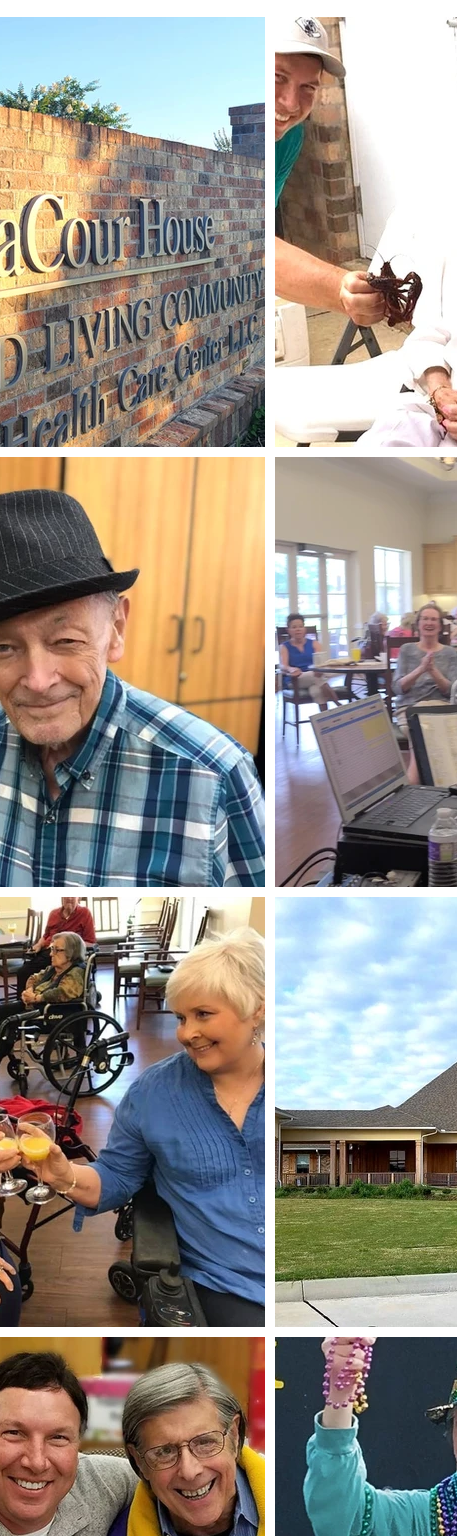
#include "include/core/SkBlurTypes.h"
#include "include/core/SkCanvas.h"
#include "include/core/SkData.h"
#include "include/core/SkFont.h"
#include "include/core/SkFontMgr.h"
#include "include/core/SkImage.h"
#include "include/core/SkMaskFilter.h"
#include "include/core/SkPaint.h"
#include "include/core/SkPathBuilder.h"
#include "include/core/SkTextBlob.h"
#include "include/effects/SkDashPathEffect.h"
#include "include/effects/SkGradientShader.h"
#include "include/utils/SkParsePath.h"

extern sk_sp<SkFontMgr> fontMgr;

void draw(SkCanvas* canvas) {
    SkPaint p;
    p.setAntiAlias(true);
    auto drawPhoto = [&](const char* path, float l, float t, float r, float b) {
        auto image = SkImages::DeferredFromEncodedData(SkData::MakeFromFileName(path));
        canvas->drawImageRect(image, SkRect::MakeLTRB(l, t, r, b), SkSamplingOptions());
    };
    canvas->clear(0xFFFFFFFF);
    drawPhoto("media/1.png", 0, 17, 265, 447);
    drawPhoto("media/2.png", 275, 17, 457, 447);
    drawPhoto("media/3.png", 0, 457, 265, 887);
    drawPhoto("media/4.png", 275, 457, 457, 887);
    drawPhoto("media/5.png", 0, 897, 265, 1327);
    drawPhoto("media/6.png", 275, 897, 457, 1327);
    drawPhoto("media/7.png", 0, 1337, 265, 1536);
    drawPhoto("media/8.png", 275, 1337, 457, 1536);
}
